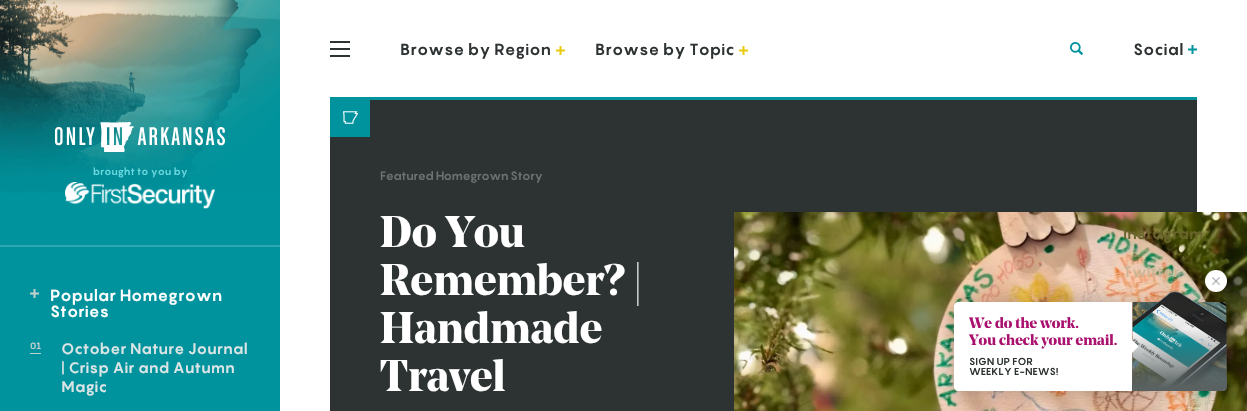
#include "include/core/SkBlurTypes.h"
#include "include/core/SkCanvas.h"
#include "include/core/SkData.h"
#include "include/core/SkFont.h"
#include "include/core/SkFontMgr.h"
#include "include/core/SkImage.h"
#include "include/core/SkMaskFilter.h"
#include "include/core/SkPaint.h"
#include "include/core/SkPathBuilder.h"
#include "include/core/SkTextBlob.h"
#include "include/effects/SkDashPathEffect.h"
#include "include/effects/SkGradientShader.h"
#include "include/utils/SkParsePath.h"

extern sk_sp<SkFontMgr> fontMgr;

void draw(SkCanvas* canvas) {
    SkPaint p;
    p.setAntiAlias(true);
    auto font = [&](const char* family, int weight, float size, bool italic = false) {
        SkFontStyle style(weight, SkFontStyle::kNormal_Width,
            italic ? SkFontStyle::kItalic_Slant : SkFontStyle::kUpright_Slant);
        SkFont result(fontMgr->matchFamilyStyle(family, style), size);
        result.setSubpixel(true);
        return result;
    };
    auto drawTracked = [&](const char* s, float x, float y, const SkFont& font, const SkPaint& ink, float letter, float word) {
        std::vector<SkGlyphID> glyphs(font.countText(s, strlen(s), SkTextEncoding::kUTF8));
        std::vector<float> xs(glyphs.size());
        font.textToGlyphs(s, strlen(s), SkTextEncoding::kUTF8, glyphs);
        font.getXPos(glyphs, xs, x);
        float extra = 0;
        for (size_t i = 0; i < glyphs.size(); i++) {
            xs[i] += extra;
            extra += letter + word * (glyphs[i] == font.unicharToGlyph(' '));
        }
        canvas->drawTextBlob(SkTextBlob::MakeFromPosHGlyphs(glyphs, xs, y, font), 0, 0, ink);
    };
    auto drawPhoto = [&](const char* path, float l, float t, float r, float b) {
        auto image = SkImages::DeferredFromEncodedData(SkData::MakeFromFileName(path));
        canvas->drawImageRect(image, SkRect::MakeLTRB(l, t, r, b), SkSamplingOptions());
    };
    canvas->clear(0xFFFFFFFF);
    p.setColor(0xFF00939D);
    canvas->drawRect(SkRect::MakeLTRB(0, 0, 280, 411), p);
    drawPhoto("media/1.png", 0, 0, 280, 193);
    drawPhoto("media/2.png", 55, 122, 225, 152);
    auto font1 = font("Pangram", 700, 10);
    p.setColor(0xFF69D8DF);
    canvas->drawString("brought to you by", 93, 175, font1, p);
    drawPhoto("media/3.png", 65, 182, 215, 209);
    p.setColor(0xFF2EA9B2);
    canvas->drawRect(SkRect::MakeLTRB(0, 245, 280, 247), p);
    drawPhoto("media/4.png", 30, 289, 39, 298);
    auto font2 = font("Pangram", 700, 16);
    p.setColor(0xFFFFFFFF);
    canvas->drawString("Popular Homegrown", 50, 301, font2, p);
    canvas->drawString("Stories", 50, 317, font2, p);
    p.setColor(0xFFC6CECE);
    canvas->drawRect(SkRect::MakeLTRB(30, 353, 41, 354), p);
    auto font3 = font("Pangram", 700, 9);
    canvas->drawString("01", 30, 349, font3, p);
    auto font4 = font("Pangram", 700, 15);
    p.setColor(0xFFDCE5E5);
    {
        const struct { const char* s; float x, y; } items[] = {
            {"October Nature Journal", 61, 354},
            {"| Crisp Air and Autumn", 61, 373},
            {"Magic", 61, 392},
        };
        for (auto [s, x, y] : items) {
            canvas->drawString(s, x, y, font4, p);
        }
    }
    drawPhoto("media/5.png", 330, 41, 350, 57);
    p.setColor(0xFF2D3232);
    canvas->drawString("Browse by Region", 400, 55, font2, p);
    drawPhoto("media/6.png", 556, 46, 565, 55);
    canvas->drawString("Browse by Topic", 595, 55, font2, p);
    drawPhoto("media/6.png", 739, 46, 748, 55);
    drawPhoto("media/7.png", 1070, 42, 1083, 55);
    canvas->drawString("Social", 1133, 55, font2, p);
    drawPhoto("media/8.png", 1188, 45, 1197, 54);
    canvas->drawRect(SkRect::MakeLTRB(330, 100, 1197, 411), p);
    drawPhoto("media/10.png", 734, 212, 1247, 411);
    p.setColor(0xFF69642B);
    canvas->drawString("Instagram", 1123, 239, font4, p);
    p.setColor(0xFFCDB796);
    canvas->drawString("Twitter", 1123, 277, font4, p);
    p.setColor(0xFF00939D);
    canvas->drawRect(SkRect::MakeLTRB(370, 97, 1197, 100), p);
    canvas->drawRect(SkRect::MakeLTRB(330, 97, 370, 137), p);
    drawPhoto("media/9.png", 343, 111, 358, 124);
    auto font5 = font("Pangram", 700, 12);
    p.setColor(0xFF6B7171);
    drawTracked("Featured Homegrown Story", 380, 180, font5, p, -0.5f, 0);
    auto font6 = font("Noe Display", 700, 44);
    p.setColor(0xFFFFFFFF);
    {
        const struct { const char* s; float x, y; } items[] = {
            {"Do You", 380, 247},
            {"Remember? |", 380, 295},
            {"Handmade", 380, 343},
            {"Travel", 380, 391},
        };
        for (auto [s, x, y] : items) {
            canvas->drawString(s, x, y, font6, p);
        }
    }
    p.setColor(0x33000000);
    p.setMaskFilter(SkMaskFilter::MakeBlur(kNormal_SkBlurStyle, 10));
    canvas->drawRect(SkRect::MakeLTRB(954, 302, 1227, 391), p);
    p.setMaskFilter(nullptr);
    drawPhoto("media/11.png", 1156, 289, 1198, 302);
    p.setColor(0x1A000000);
    p.setMaskFilter(SkMaskFilter::MakeBlur(kNormal_SkBlurStyle, 2));
    canvas->drawRoundRect(SkRect::MakeLTRB(1205, 270, 1227, 292), 11, 11, p);
    p.setMaskFilter(nullptr);
    p.setColor(0xFFFFFFFF);
    canvas->drawCircle(1216, 281, 11, p);
    drawPhoto("media/12.png", 1212, 277, 1220, 285);
    canvas->drawPath(SkPathBuilder().moveTo(958, 302).lineTo(1132, 302).lineTo(1132, 391).lineTo(958, 391).cubicTo(956, 391, 954, 389, 954, 387).lineTo(954, 306).cubicTo(954, 304, 956, 302, 958, 302).close().detach(), p);
    auto font7 = font("Noe Display", 700, 15);
    p.setColor(0xFFAA116F);
    canvas->drawString("We do the work.", 969, 328, font7, p);
    canvas->drawString("You check your email.", 969, 345, font7, p);
    p.setColor(0xFF2D3232);
    canvas->drawString("SIGN UP FOR", 969, 365, font1, p);
    canvas->drawString("WEEKLY E-NEWS!", 969, 375, font1, p);
    drawPhoto("media/13.png", 1132, 302, 1227, 391);
    {
        const SkColor colors[] = {0xFF596161, 0x00596161};
        const float stops[] = {0.05f, 1};
        const SkPoint ends[] = {{1180, 391}, {1180, 329}};
        p.setShader(SkGradientShader::MakeLinear(ends, colors, stops, 2, SkTileMode::kClamp));
        p.setAlpha(255);
    }
    canvas->drawPath(SkPathBuilder().moveTo(1132, 329).lineTo(1227, 329).lineTo(1227, 387).cubicTo(1227, 389, 1225, 391, 1223, 391).lineTo(1132, 391).close().detach(), p);
    p.setShader(nullptr);
    p.setColor(0xFFFFFFFF);
    canvas->drawPath(SkPathBuilder().moveTo(1132, 340).lineTo(1138.5f, 346.5f).lineTo(1132, 353).lineTo(1125.5f, 346.5f).close().detach(), p);
}
